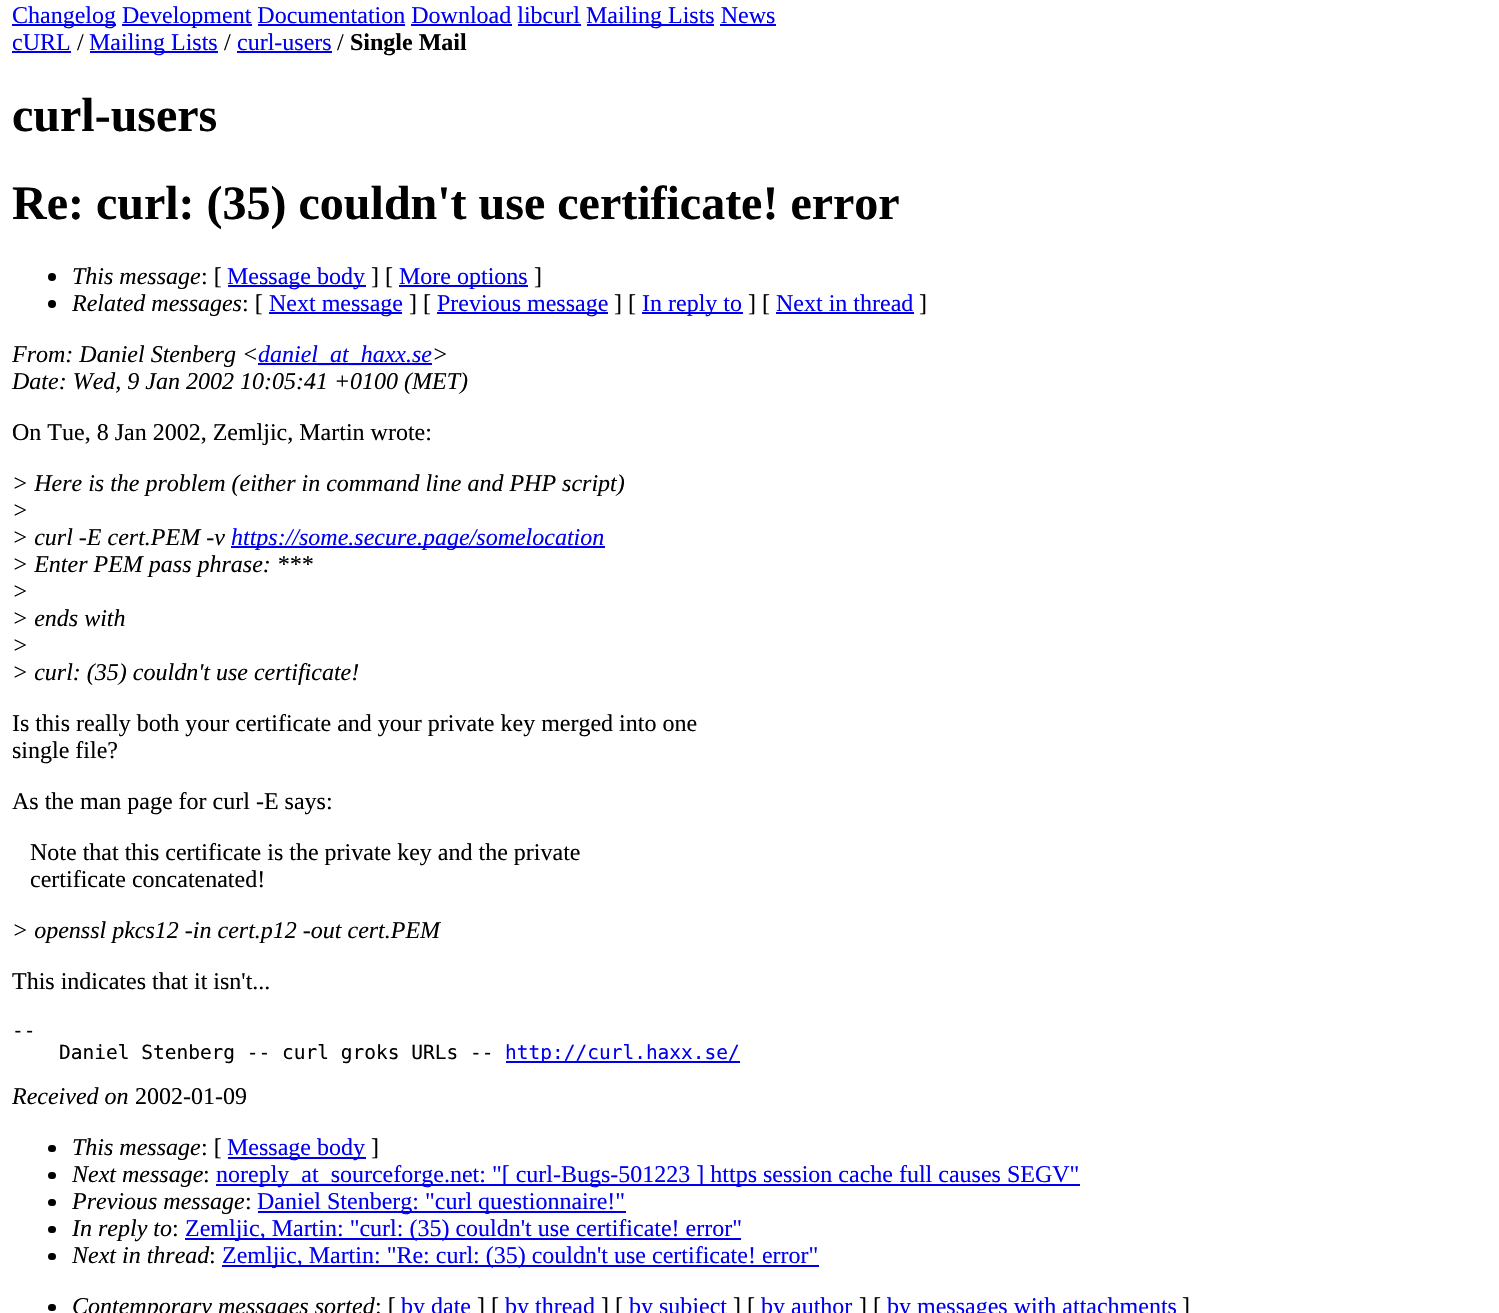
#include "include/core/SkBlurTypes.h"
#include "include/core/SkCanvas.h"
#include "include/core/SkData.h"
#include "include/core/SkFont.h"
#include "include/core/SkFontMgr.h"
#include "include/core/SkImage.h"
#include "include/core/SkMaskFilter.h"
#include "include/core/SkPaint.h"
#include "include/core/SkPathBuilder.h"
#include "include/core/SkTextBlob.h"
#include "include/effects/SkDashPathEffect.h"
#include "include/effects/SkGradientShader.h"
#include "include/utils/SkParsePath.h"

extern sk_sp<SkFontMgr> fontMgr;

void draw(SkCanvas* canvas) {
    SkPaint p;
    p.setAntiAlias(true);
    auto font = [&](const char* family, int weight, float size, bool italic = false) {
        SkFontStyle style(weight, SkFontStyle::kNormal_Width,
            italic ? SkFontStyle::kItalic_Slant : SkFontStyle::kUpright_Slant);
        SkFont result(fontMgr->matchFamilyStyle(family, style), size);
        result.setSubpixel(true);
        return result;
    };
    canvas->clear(0xFFFFFFFF);
    p.setColor(0xFF0000EE);
    canvas->drawRect(SkRect::MakeLTRB(12, 24, 116, 26), p);
    auto font1 = font("Liberation Serif", 400, 24);
    canvas->drawString("Changelog", 12, 23, font1, p);
    canvas->drawRect(SkRect::MakeLTRB(122, 24, 252, 26), p);
    canvas->drawString("Development Documentation Download libcurl", 122, 23, font1, p);
    canvas->drawRect(SkRect::MakeLTRB(587, 24, 714, 26), p);
    canvas->drawString("Mailing Lists News", 586, 23, font1, p);
    {
        const struct { float l, t, r, b; SkColor color; } items[] = {
            {258, 24, 405, 26, 0xFF0000EE},
            {411, 24, 512, 26, 0xFF0000EE},
            {518, 24, 581, 26, 0xFF0000EE},
            {720, 24, 776, 26, 0xFF0000EE},
        };
        for (auto [l, t, r, b, color] : items) {
            p.setColor(color);
            canvas->drawRect(SkRect::MakeLTRB(l, t, r, b), p);
        }
    }
    canvas->drawString("cURL", 12, 50, font1, p);
    canvas->drawRect(SkRect::MakeLTRB(12, 51, 71, 53), p);
    p.setColor(0xFF000000);
    canvas->drawString("/", 77, 50, font1, p);
    p.setColor(0xFF0000EE);
    canvas->drawRect(SkRect::MakeLTRB(90, 51, 218, 53), p);
    canvas->drawString("Mailing Lists", 89, 50, font1, p);
    p.setColor(0xFF000000);
    canvas->drawString("/", 224, 50, font1, p);
    p.setColor(0xFF0000EE);
    canvas->drawString("curl-users", 237, 50, font1, p);
    canvas->drawRect(SkRect::MakeLTRB(237, 51, 332, 53), p);
    p.setColor(0xFF000000);
    canvas->drawString("/", 337, 50, font1, p);
    auto font2 = font("Liberation Serif", 700, 24);
    canvas->drawString("Single Mail", 350, 50, font2, p);
    auto font3 = font("Liberation Serif", 700, 48);
    canvas->drawString("curl-users", 12, 131, font3, p);
    canvas->drawString("Re: curl: (35) couldn't use certificate! error", 12, 219, font3, p);
    canvas->drawCircle(52, 277, 4, p);
    auto font4 = font("Liberation Serif", 400, 24, true);
    canvas->drawString("This message", 72, 284, font4, p);
    canvas->drawString(": [", 201, 284, font1, p);
    p.setColor(0xFF0000EE);
    canvas->drawRect(SkRect::MakeLTRB(228, 285, 366, 287), p);
    canvas->drawString("Message body", 227, 284, font1, p);
    p.setColor(0xFF000000);
    canvas->drawString("] [", 371, 284, font1, p);
    p.setColor(0xFF0000EE);
    canvas->drawRect(SkRect::MakeLTRB(399, 285, 528, 287), p);
    canvas->drawString("More options", 399, 284, font1, p);
    p.setColor(0xFF000000);
    canvas->drawString("]", 534, 284, font1, p);
    canvas->drawCircle(52, 304, 4, p);
    canvas->drawString("Related messages", 72, 311, font4, p);
    canvas->drawString(": [", 242, 311, font1, p);
    p.setColor(0xFF0000EE);
    canvas->drawRect(SkRect::MakeLTRB(269, 312, 402, 314), p);
    canvas->drawString("Next message", 269, 311, font1, p);
    p.setColor(0xFF000000);
    canvas->drawString("] [", 409, 311, font1, p);
    p.setColor(0xFF0000EE);
    canvas->drawRect(SkRect::MakeLTRB(437, 312, 608, 314), p);
    canvas->drawString("Previous message", 437, 311, font1, p);
    p.setColor(0xFF000000);
    canvas->drawString("] [", 614, 311, font1, p);
    p.setColor(0xFF0000EE);
    canvas->drawRect(SkRect::MakeLTRB(642, 312, 743, 314), p);
    canvas->drawString("In reply to", 642, 311, font1, p);
    p.setColor(0xFF000000);
    canvas->drawString("] [", 748, 311, font1, p);
    p.setColor(0xFF0000EE);
    canvas->drawString("Next in thread", 776, 311, font1, p);
    canvas->drawRect(SkRect::MakeLTRB(776, 312, 914, 314), p);
    p.setColor(0xFF000000);
    canvas->drawString("]", 919, 311, font1, p);
    canvas->drawString("From: Daniel Stenberg <", 12, 362, font4, p);
    p.setColor(0xFF0000EE);
    canvas->drawRect(SkRect::MakeLTRB(258, 363, 432, 365), p);
    canvas->drawString("daniel_at_haxx.se", 258, 362, font4, p);
    p.setColor(0xFF000000);
    canvas->drawString(">", 432, 362, font4, p);
    canvas->drawString("Date: Wed, 9 Jan 2002 10:05:41 +0100 (MET)", 12, 389, font4, p);
    canvas->drawString("On Tue, 8 Jan 2002, Zemljic, Martin wrote:", 12, 440, font1, p);
    {
        const struct { const char* s; float x, y; } items[] = {
            {"> Here is the problem (either in command line and PHP script)", 12, 491},
            {">", 12, 518},
            {"> curl -E cert.PEM -v", 12, 545},
        };
        for (auto [s, x, y] : items) {
            canvas->drawString(s, x, y, font4, p);
        }
    }
    p.setColor(0xFF0000EE);
    canvas->drawRect(SkRect::MakeLTRB(231, 546, 605, 548), p);
    canvas->drawString("https://some.secure.page/somelocation", 231, 545, font4, p);
    p.setColor(0xFF000000);
    {
        const struct { const char* s; float x, y; } items[] = {
            {"> Enter PEM pass phrase: ***", 12, 572},
            {">", 12, 599},
            {"> ends with", 12, 626},
            {">", 12, 653},
            {"> curl: (35) couldn't use certificate!", 12, 680},
        };
        for (auto [s, x, y] : items) {
            canvas->drawString(s, x, y, font4, p);
        }
    }
    {
        const struct { const char* s; float x, y; } items[] = {
            {"Is this really both your certificate and your private key merged into one", 12, 731},
            {"single file?", 12, 758},
            {"As the man page for curl -E says:", 12, 809},
            {"Note that this certificate is the private key and the private", 30, 860},
            {"certificate concatenated!", 30, 887},
        };
        for (auto [s, x, y] : items) {
            canvas->drawString(s, x, y, font1, p);
        }
    }
    canvas->drawString("> openssl pkcs12 -in cert.p12 -out cert.PEM", 12, 938, font4, p);
    canvas->drawString("This indicates that it isn't...", 12, 989, font1, p);
    auto font5 = font("DejaVu Sans Mono", 400, 19.5f);
    canvas->drawString("--", 12, 1037, font5, p);
    canvas->drawString("Daniel Stenberg -- curl groks URLs --", 59, 1059, font5, p);
    p.setColor(0xFF0000EE);
    canvas->drawRect(SkRect::MakeLTRB(506, 1061, 740, 1063), p);
    canvas->drawString("http://curl.haxx.se/", 505, 1059, font5, p);
    p.setColor(0xFF000000);
    canvas->drawString("Received on", 12, 1104, font4, p);
    canvas->drawString("2002-01-09", 135, 1104, font1, p);
    canvas->drawRoundRect(SkRect::MakeLTRB(48, 1145, 56, 1152), 3.5f, 3.5f, p);
    canvas->drawString("This message", 72, 1155, font4, p);
    canvas->drawString(": [", 201, 1155, font1, p);
    p.setColor(0xFF0000EE);
    canvas->drawRect(SkRect::MakeLTRB(228, 1157, 366, 1159), p);
    canvas->drawString("Message body", 227, 1155, font1, p);
    p.setColor(0xFF000000);
    canvas->drawString("]", 371, 1155, font1, p);
    canvas->drawRoundRect(SkRect::MakeLTRB(48, 1172, 56, 1179), 3.5f, 3.5f, p);
    canvas->drawString("Next message", 72, 1182, font4, p);
    canvas->drawString(":", 203, 1182, font1, p);
    p.setColor(0xFF0000EE);
    canvas->drawRect(SkRect::MakeLTRB(216, 1184, 1080, 1186), p);
    canvas->drawString("noreply_at_sourceforge.net: \"[ curl-Bugs-501223 ] https session cache full causes SEGV\"", 216, 1182, font1, p);
    p.setColor(0xFF000000);
    canvas->drawRoundRect(SkRect::MakeLTRB(48, 1199, 56, 1206), 3.5f, 3.5f, p);
    canvas->drawString("Previous message", 72, 1209, font4, p);
    canvas->drawString(":", 245, 1209, font1, p);
    p.setColor(0xFF0000EE);
    canvas->drawRect(SkRect::MakeLTRB(258, 1211, 626, 1213), p);
    canvas->drawString("Daniel Stenberg: \"curl questionnaire!\"", 257, 1209, font1, p);
    p.setColor(0xFF000000);
    canvas->drawRoundRect(SkRect::MakeLTRB(48, 1226, 56, 1233), 3.5f, 3.5f, p);
    canvas->drawString("In reply to", 72, 1236, font4, p);
    canvas->drawString(":", 172, 1236, font1, p);
    p.setColor(0xFF0000EE);
    canvas->drawRect(SkRect::MakeLTRB(185, 1238, 741, 1240), p);
    canvas->drawString("Zemljic, Martin: \"curl: (35) couldn't use certificate! error\"", 185, 1236, font1, p);
    p.setColor(0xFF000000);
    canvas->drawRoundRect(SkRect::MakeLTRB(48, 1253, 56, 1260), 3.5f, 3.5f, p);
    canvas->drawString("Next in thread", 72, 1263, font4, p);
    canvas->drawString(":", 209, 1263, font1, p);
    p.setColor(0xFF0000EE);
    canvas->drawRect(SkRect::MakeLTRB(222, 1265, 819, 1267), p);
    canvas->drawString("Zemljic, Martin: \"Re: curl: (35) couldn't use certificate! error\"", 222, 1263, font1, p);
    p.setColor(0xFF000000);
    canvas->drawRoundRect(SkRect::MakeLTRB(48, 1304, 56, 1311), 3.5f, 3.5f, p);
    canvas->drawString("Contemporary messages sorted", 72, 1314, font4, p);
    canvas->drawString(": [", 375, 1314, font1, p);
    p.setColor(0xFF0000EE);
    canvas->drawString("by date", 401, 1314, font1, p);
    p.setColor(0xFF000000);
    canvas->drawString("] [", 477, 1314, font1, p);
    p.setColor(0xFF0000EE);
    canvas->drawString("by thread", 505, 1314, font1, p);
    p.setColor(0xFF000000);
    canvas->drawString("] [", 601, 1314, font1, p);
    p.setColor(0xFF0000EE);
    canvas->drawString("by subject", 629, 1314, font1, p);
    p.setColor(0xFF000000);
    canvas->drawString("] [", 733, 1314, font1, p);
    p.setColor(0xFF0000EE);
    canvas->drawString("by author", 761, 1314, font1, p);
    p.setColor(0xFF000000);
    canvas->drawString("] [", 859, 1314, font1, p);
    p.setColor(0xFF0000EE);
    canvas->drawString("by messages with attachments", 887, 1314, font1, p);
    p.setColor(0xFF000000);
    canvas->drawString("]", 1182, 1314, font1, p);
}
